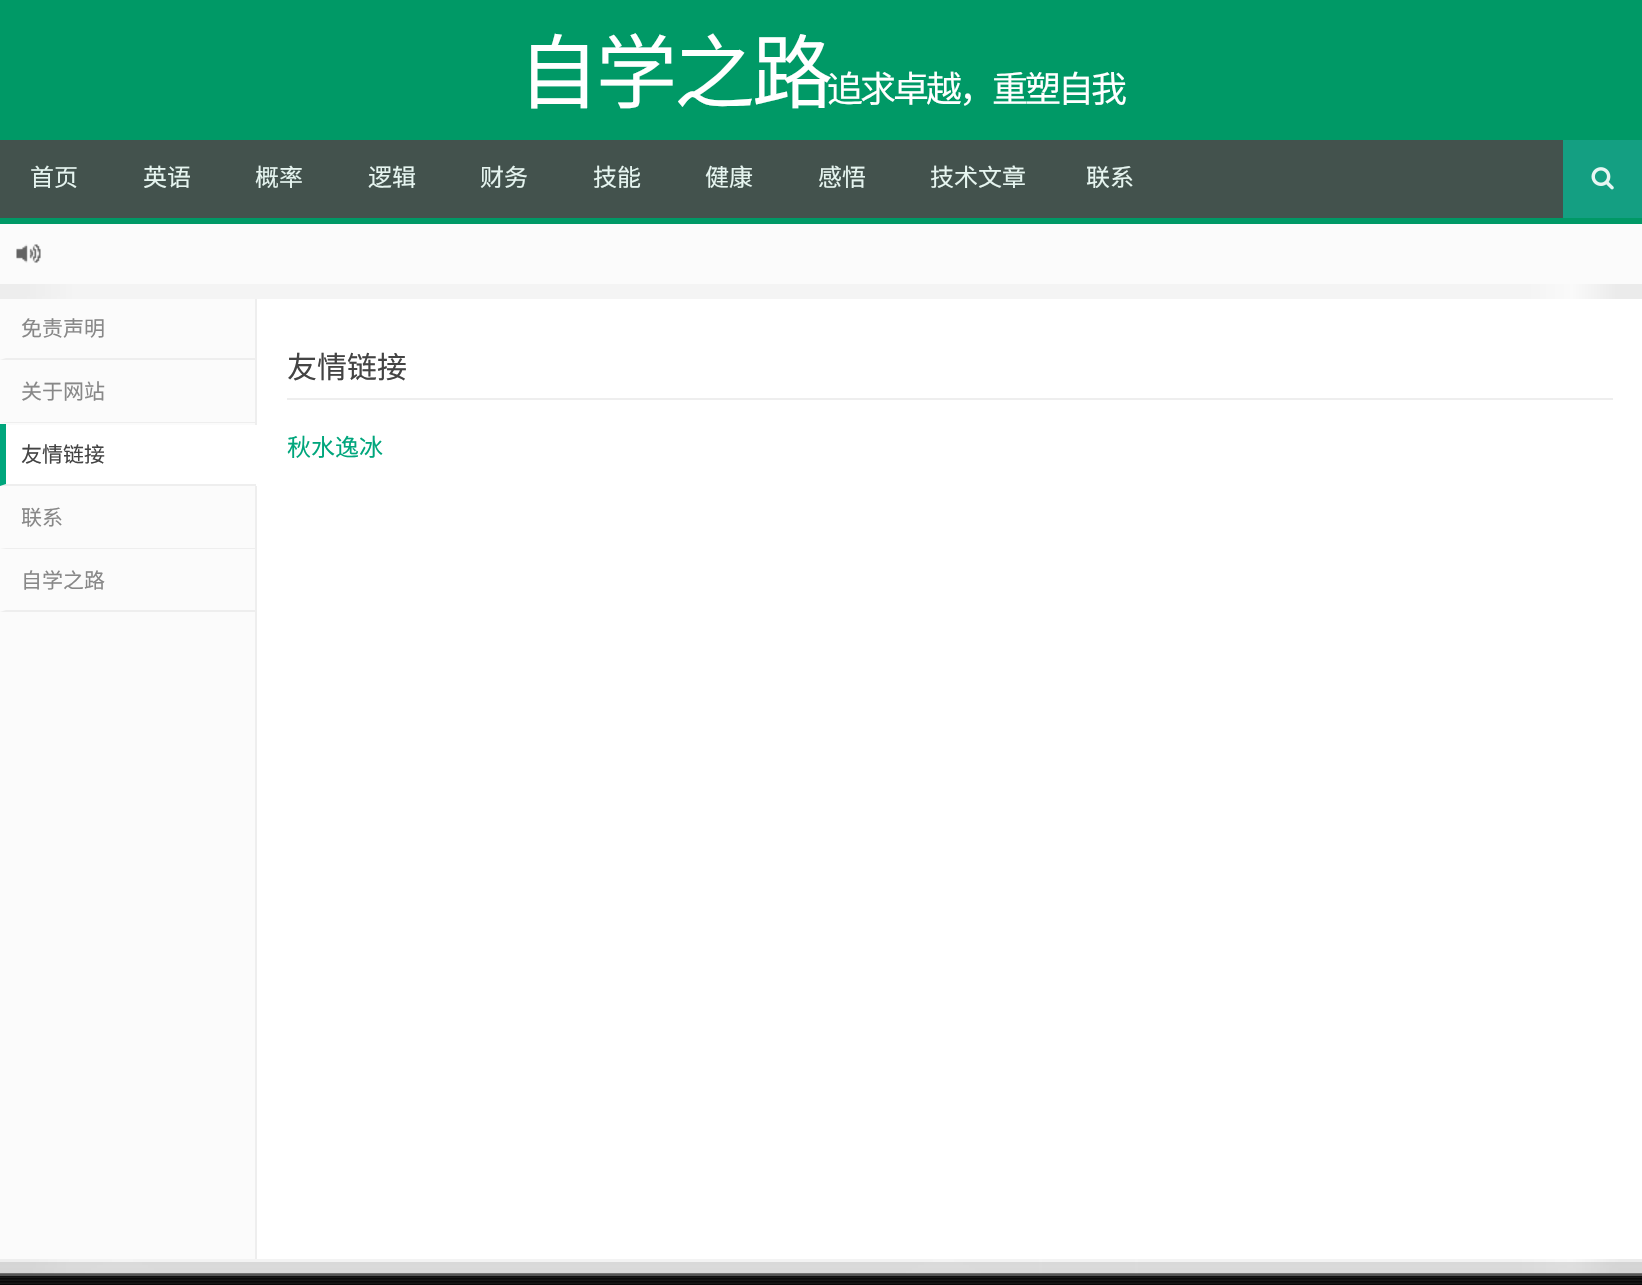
#include "include/core/SkBlurTypes.h"
#include "include/core/SkCanvas.h"
#include "include/core/SkData.h"
#include "include/core/SkFont.h"
#include "include/core/SkFontMgr.h"
#include "include/core/SkImage.h"
#include "include/core/SkMaskFilter.h"
#include "include/core/SkPaint.h"
#include "include/core/SkPathBuilder.h"
#include "include/core/SkTextBlob.h"
#include "include/effects/SkDashPathEffect.h"
#include "include/effects/SkGradientShader.h"
#include "include/utils/SkParsePath.h"

extern sk_sp<SkFontMgr> fontMgr;

void draw(SkCanvas* canvas) {
    SkPaint p;
    p.setAntiAlias(true);
    auto font = [&](const char* family, int weight, float size, bool italic = false) {
        SkFontStyle style(weight, SkFontStyle::kNormal_Width,
            italic ? SkFontStyle::kItalic_Slant : SkFontStyle::kUpright_Slant);
        SkFont result(fontMgr->matchFamilyStyle(family, style), size);
        result.setSubpixel(true);
        return result;
    };
    auto drawTracked = [&](const char* s, float x, float y, const SkFont& font, const SkPaint& ink, float letter, float word) {
        std::vector<SkGlyphID> glyphs(font.countText(s, strlen(s), SkTextEncoding::kUTF8));
        std::vector<float> xs(glyphs.size());
        font.textToGlyphs(s, strlen(s), SkTextEncoding::kUTF8, glyphs);
        font.getXPos(glyphs, xs, x);
        float extra = 0;
        for (size_t i = 0; i < glyphs.size(); i++) {
            xs[i] += extra;
            extra += letter + word * (glyphs[i] == font.unicharToGlyph(' '));
        }
        canvas->drawTextBlob(SkTextBlob::MakeFromPosHGlyphs(glyphs, xs, y, font), 0, 0, ink);
    };
    auto drawPhoto = [&](const char* path, float l, float t, float r, float b) {
        auto image = SkImages::DeferredFromEncodedData(SkData::MakeFromFileName(path));
        canvas->drawImageRect(image, SkRect::MakeLTRB(l, t, r, b), SkSamplingOptions());
    };
    canvas->clear(0xFFEEEEEE);
    drawPhoto("media/1.png", 0, 284, 1642, 1274);
    p.setColor(0xFF009966);
    canvas->drawRect(SkRect::MakeLTRB(0, 0, 1642, 140), p);
    auto font1 = font("Noto Sans CJK SC", 400, 81);
    p.setColor(0xFFFFFFFF);
    drawTracked("自学之路", 518, 102, font1, p, -3, 0);
    auto font2 = font("Noto Sans CJK SC", 400, 36);
    drawTracked("追求卓越，重塑自我", 827, 102, font2, p, -3, 0);
    p.setColor(0xFF43524D);
    canvas->drawRect(SkRect::MakeLTRB(0, 140, 1563, 218), p);
    p.setColor(0xFF009966);
    canvas->drawRect(SkRect::MakeLTRB(0, 218, 1642, 224), p);
    auto font3 = font("Noto Sans CJK SC", 400, 24);
    p.setColor(0xFFE6F5F0);
    {
        const struct { const char* s; float x, y; } items[] = {
            {"首页", 30, 186},
            {"英语", 143, 186},
            {"概率", 255, 186},
            {"逻辑", 368, 186},
            {"财务", 480, 186},
            {"技能", 593, 186},
            {"健康", 705, 186},
            {"感悟", 818, 186},
            {"技术文章", 930, 186},
            {"联系", 1086, 186},
        };
        for (auto [s, x, y] : items) {
            canvas->drawString(s, x, y, font3, p);
        }
    }
    p.setColor(0xFF149F82);
    canvas->drawRect(SkRect::MakeLTRB(1563, 140, 1642, 218), p);
    drawPhoto("media/2.png", 1591, 167, 1614, 190);
    p.setColor(0xFFFBFBFB);
    canvas->drawRect(SkRect::MakeLTRB(0, 224, 1642, 284), p);
    drawPhoto("media/3.png", 16, 244, 41, 263);
    p.setColor(0xFFFFFFFF);
    canvas->drawRect(SkRect::MakeLTRB(257, 299, 1642, 1259), p);
    p.setColor(0xFFFBFBFB);
    canvas->drawRect(SkRect::MakeLTRB(0, 299, 255, 1259), p);
    p.setColor(0xFFEEEEEE);
    canvas->drawPath(SkPathBuilder().moveTo(255, 360).lineTo(0, 360).lineTo(6, 358).lineTo(255, 358).close().detach(), p);
    auto font4 = font("Noto Sans CJK SC", 400, 21);
    p.setColor(0xFF888888);
    canvas->drawString("免责声明", 21, 336, font4, p);
    p.setColor(0xFFEEEEEE);
    canvas->drawPath(SkPathBuilder().moveTo(255, 423).lineTo(0, 423).lineTo(6, 422).lineTo(255, 422).close().detach(), p);
    p.setColor(0xFF888888);
    canvas->drawString("关于网站", 21, 399, font4, p);
    p.setColor(0xFFEEEEEE);
    canvas->drawRect(SkRect::MakeLTRB(255, 299, 257, 1259), p);
    p.setColor(0xFFFFFFFF);
    canvas->drawRect(SkRect::MakeLTRB(0, 425, 257, 486), p);
    p.setColor(0xFFEEEEEE);
    canvas->drawPath(SkPathBuilder().moveTo(256, 486).lineTo(0, 486).lineTo(6, 484).lineTo(256, 484).close().detach(), p);
    p.setColor(0xFF00A67C);
    canvas->drawPath(SkPathBuilder().moveTo(0, 486).lineTo(0, 424).lineTo(6, 424).lineTo(6, 484).close().detach(), p);
    p.setColor(0xFF444444);
    canvas->drawString("友情链接", 21, 462, font4, p);
    p.setColor(0xFFEEEEEE);
    canvas->drawPath(SkPathBuilder().moveTo(255, 549).lineTo(0, 549).lineTo(6, 548).lineTo(255, 548).close().detach(), p);
    p.setColor(0xFF888888);
    canvas->drawString("联系", 21, 525, font4, p);
    p.setColor(0xFFEEEEEE);
    canvas->drawPath(SkPathBuilder().moveTo(255, 612).lineTo(0, 612).lineTo(6, 610).lineTo(255, 610).close().detach(), p);
    p.setColor(0xFF888888);
    canvas->drawString("自学之路", 21, 588, font4, p);
    p.setColor(0xFFEEEEEE);
    canvas->drawRect(SkRect::MakeLTRB(287, 398, 1613, 400), p);
    auto font5 = font("Noto Sans CJK SC", 400, 30);
    p.setColor(0xFF444444);
    canvas->drawString("友情链接", 287, 378, font5, p);
    p.setColor(0xFF00A67C);
    canvas->drawString("秋水逸冰", 287, 456, font3, p);
    p.setColor(0x1A000000);
    canvas->drawPath(SkPathBuilder().moveTo(0, 1262).lineTo(0, 1274).lineTo(1642, 1274).lineTo(1642, 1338).lineTo(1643, 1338).lineTo(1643, 1262).close().detach(), p);
    drawPhoto("media/4.png", 0, 1273, 1642, 1285);
    p.setColor(0xFF555555);
    canvas->drawRect(SkRect::MakeLTRB(0, 1274, 1642, 1276), p);
}
